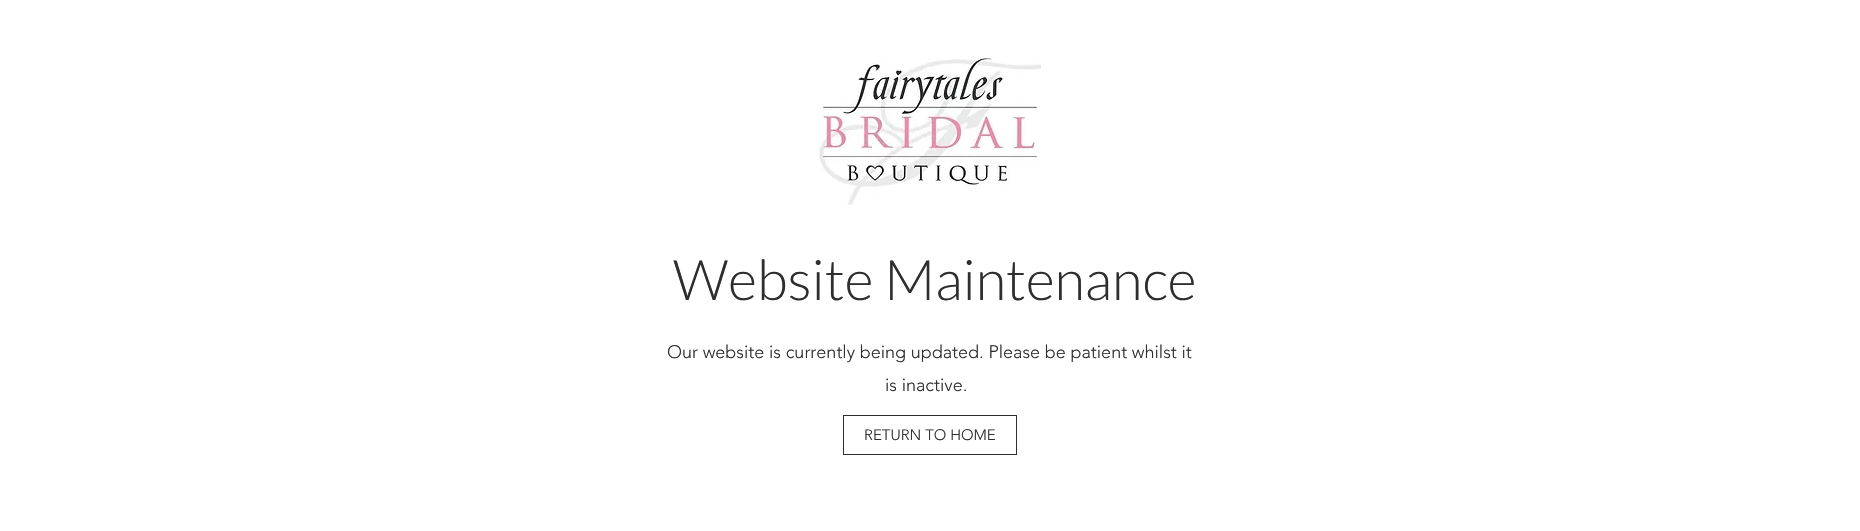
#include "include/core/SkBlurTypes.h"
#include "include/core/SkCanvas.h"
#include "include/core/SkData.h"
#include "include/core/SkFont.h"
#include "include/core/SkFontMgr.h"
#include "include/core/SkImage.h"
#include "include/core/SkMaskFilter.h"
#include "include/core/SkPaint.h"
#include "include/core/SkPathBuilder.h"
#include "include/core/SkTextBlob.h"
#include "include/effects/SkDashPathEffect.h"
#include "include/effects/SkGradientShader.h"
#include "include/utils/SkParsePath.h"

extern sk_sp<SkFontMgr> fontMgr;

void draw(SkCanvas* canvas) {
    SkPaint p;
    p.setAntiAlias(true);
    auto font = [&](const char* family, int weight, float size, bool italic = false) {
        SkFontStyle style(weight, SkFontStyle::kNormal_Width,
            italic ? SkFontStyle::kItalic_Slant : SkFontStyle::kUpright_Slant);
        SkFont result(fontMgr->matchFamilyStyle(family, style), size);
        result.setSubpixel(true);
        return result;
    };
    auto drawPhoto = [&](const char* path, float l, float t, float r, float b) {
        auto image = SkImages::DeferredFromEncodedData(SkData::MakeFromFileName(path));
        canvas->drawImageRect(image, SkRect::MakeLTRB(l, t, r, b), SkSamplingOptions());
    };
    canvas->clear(0xFFFFFFFF);
    drawPhoto("media/1.png", 819, 58, 1041, 206);
    auto font1 = font("Lato", 300, 56);
    p.setColor(0xFF2F2E2E);
    canvas->drawString("Website Maintenance", 673, 300, font1, p);
    auto font2 = font("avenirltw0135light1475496", 300, 18);
    canvas->drawString("Our website is currently being updated. Please be patient whilst it", 667, 358, font2, p);
    canvas->drawString("is inactive.", 885, 391, font2, p);
    p.setStyle(SkPaint::kStroke_Style);
    p.setStrokeWidth(1);
    canvas->drawRect(SkRect::MakeLTRB(843.5f, 415.5f, 1016.5f, 454.5f), p);
    auto font3 = font("avenirltw0135light1475496", 300, 15);
    p.setStyle(SkPaint::kFill_Style);
    canvas->drawString("RETURN TO HOME", 864, 440, font3, p);
}
